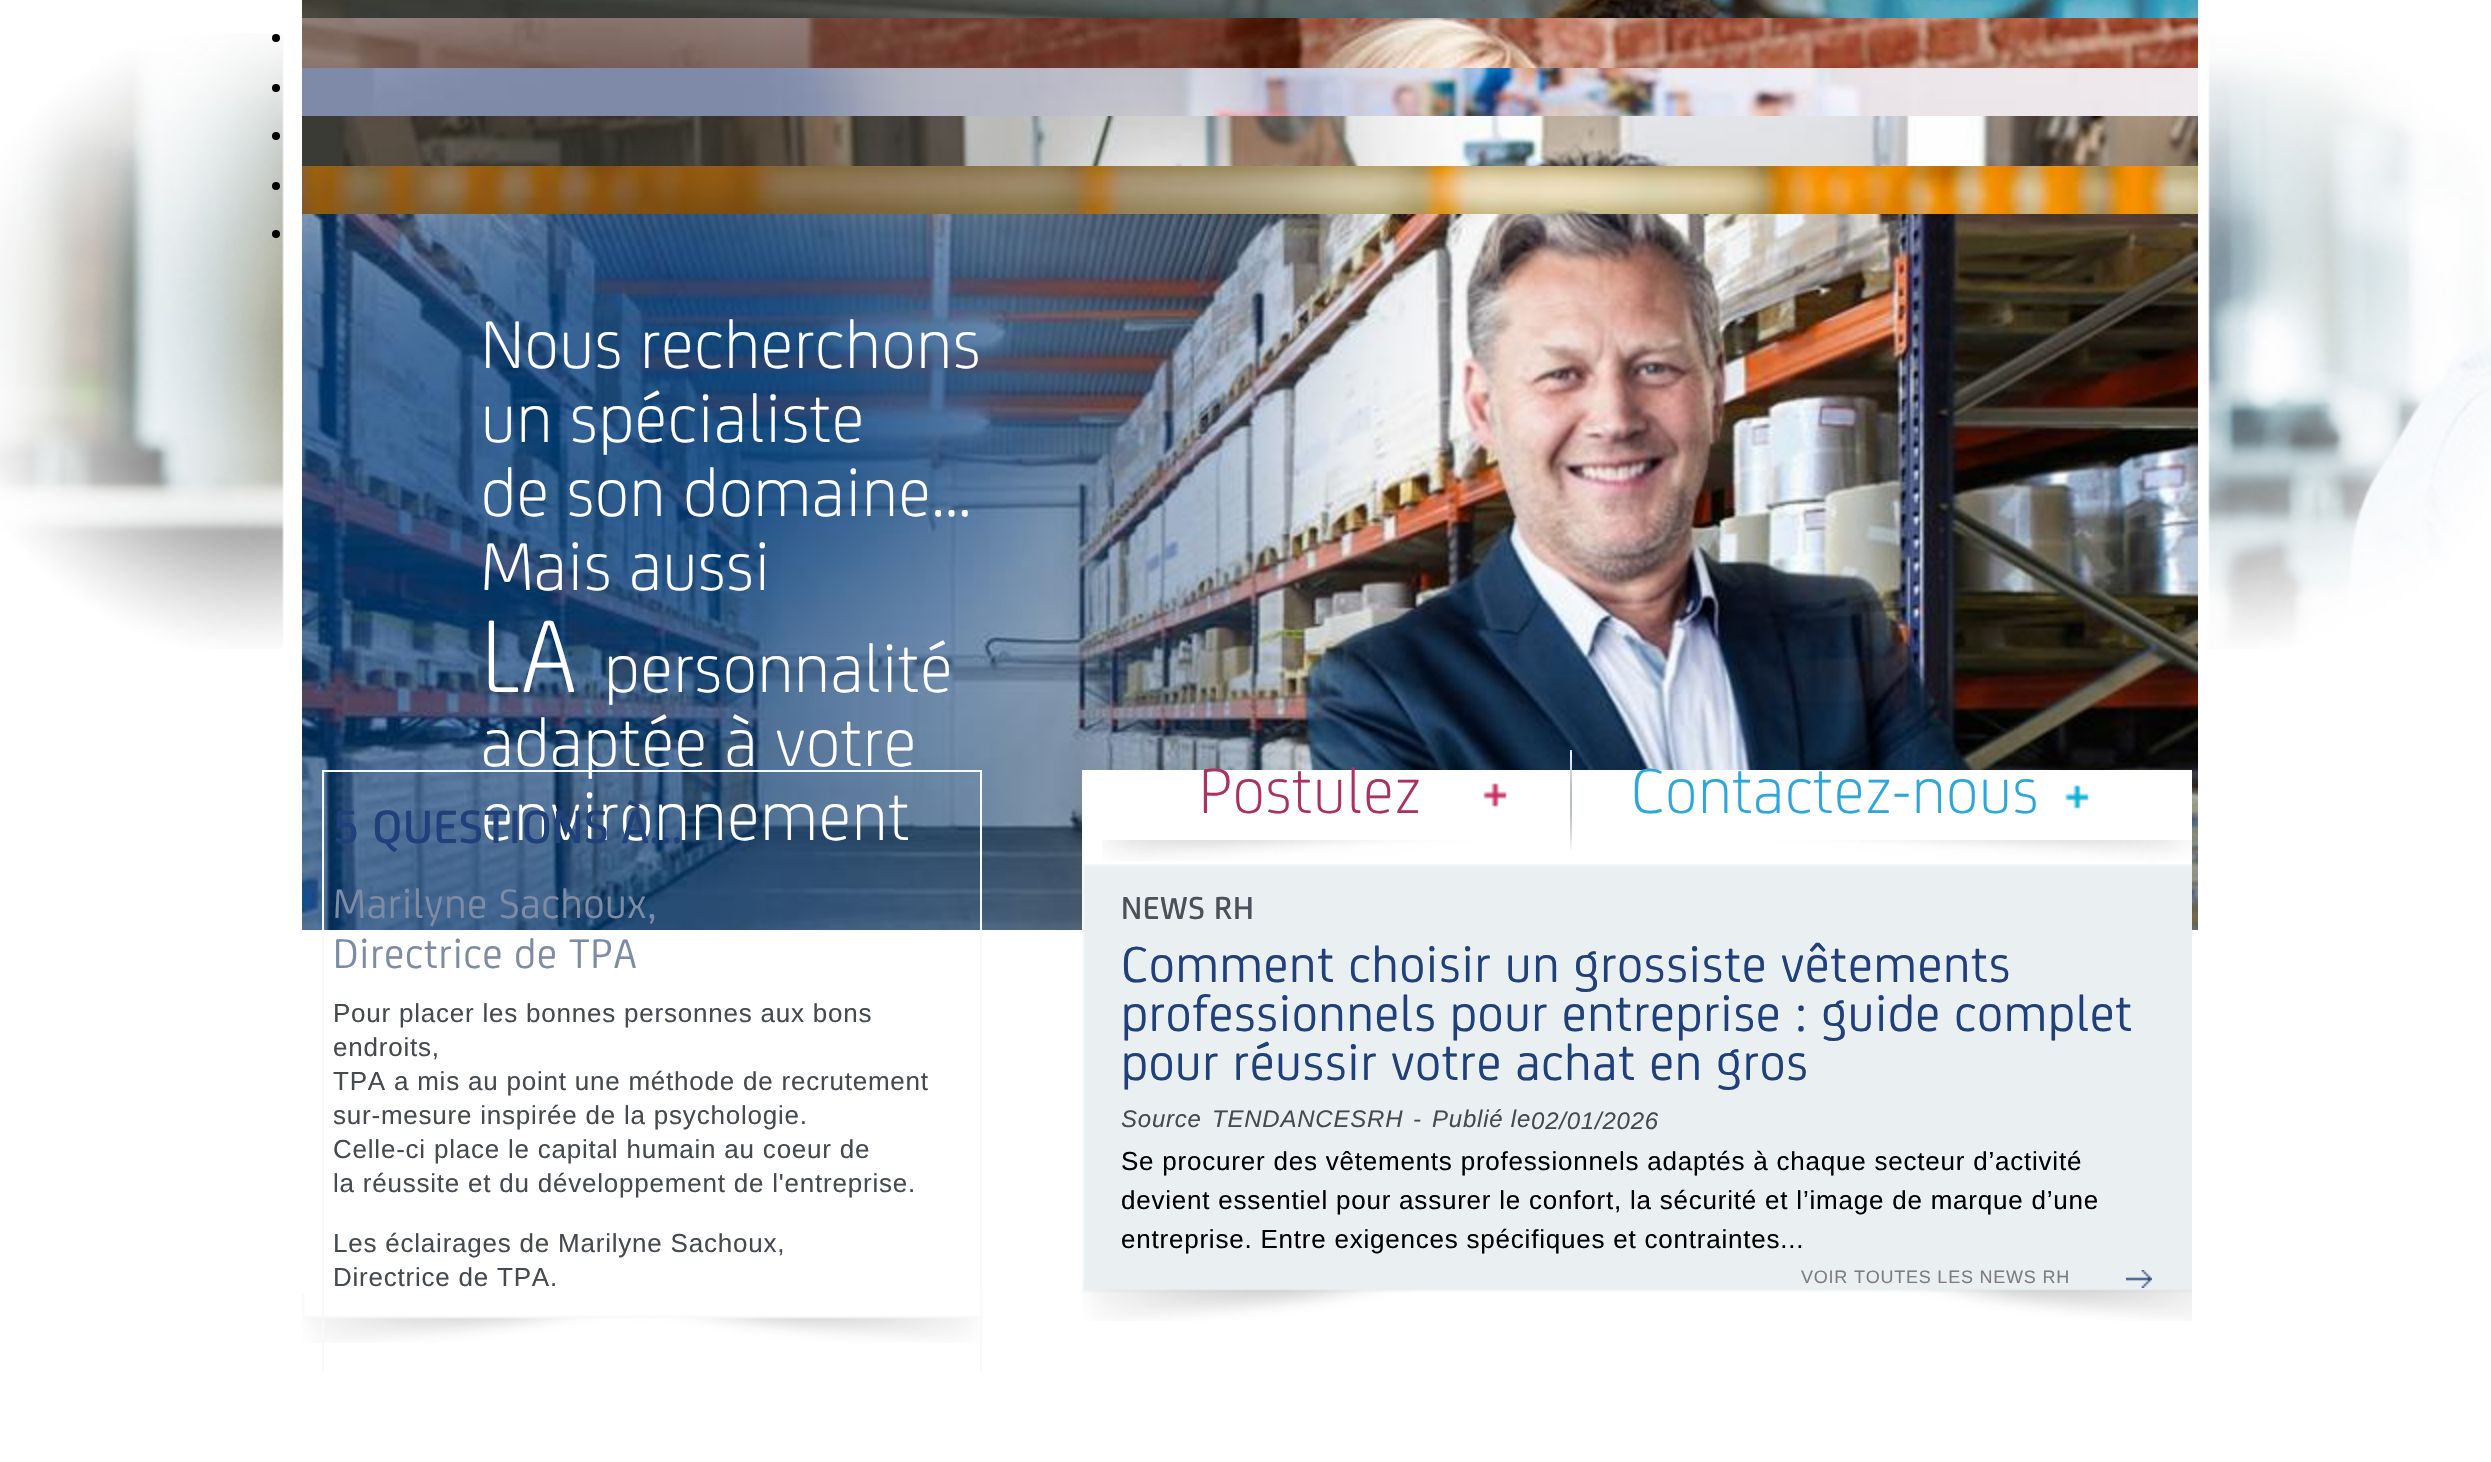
#include "include/core/SkBlurTypes.h"
#include "include/core/SkCanvas.h"
#include "include/core/SkData.h"
#include "include/core/SkFont.h"
#include "include/core/SkFontMgr.h"
#include "include/core/SkImage.h"
#include "include/core/SkMaskFilter.h"
#include "include/core/SkPaint.h"
#include "include/core/SkPathBuilder.h"
#include "include/core/SkTextBlob.h"
#include "include/effects/SkDashPathEffect.h"
#include "include/effects/SkGradientShader.h"
#include "include/utils/SkParsePath.h"

extern sk_sp<SkFontMgr> fontMgr;

void draw(SkCanvas* canvas) {
    SkPaint p;
    p.setAntiAlias(true);
    auto font = [&](const char* family, int weight, float size, bool italic = false) {
        SkFontStyle style(weight, SkFontStyle::kNormal_Width,
            italic ? SkFontStyle::kItalic_Slant : SkFontStyle::kUpright_Slant);
        SkFont result(fontMgr->matchFamilyStyle(family, style), size);
        result.setSubpixel(true);
        return result;
    };
    auto drawTracked = [&](const char* s, float x, float y, const SkFont& font, const SkPaint& ink, float letter, float word) {
        std::vector<SkGlyphID> glyphs(font.countText(s, strlen(s), SkTextEncoding::kUTF8));
        std::vector<float> xs(glyphs.size());
        font.textToGlyphs(s, strlen(s), SkTextEncoding::kUTF8, glyphs);
        font.getXPos(glyphs, xs, x);
        float extra = 0;
        for (size_t i = 0; i < glyphs.size(); i++) {
            xs[i] += extra;
            extra += letter + word * (glyphs[i] == font.unicharToGlyph(' '));
        }
        canvas->drawTextBlob(SkTextBlob::MakeFromPosHGlyphs(glyphs, xs, y, font), 0, 0, ink);
    };
    auto drawPhoto = [&](const char* path, float l, float t, float r, float b) {
        auto image = SkImages::DeferredFromEncodedData(SkData::MakeFromFileName(path));
        canvas->drawImageRect(image, SkRect::MakeLTRB(l, t, r, b), SkSamplingOptions());
    };
    canvas->clear(0xFFFFFFFF);
    drawPhoto("media/1.png", 0, 33, 2491, 649);
    drawPhoto("media/2.png", 302, 0, 2198, 18);
    p.setColor(0xFF000000);
    canvas->drawCircle(276, 38, 4, p);
    drawPhoto("media/3.png", 302, 18, 2198, 68);
    canvas->drawCircle(276, 88, 4, p);
    drawPhoto("media/4.png", 302, 68, 2198, 116);
    canvas->drawCircle(276, 136, 4, p);
    drawPhoto("media/5.png", 302, 116, 2198, 166);
    canvas->drawCircle(276, 186, 4, p);
    drawPhoto("media/6.png", 302, 166, 2198, 214);
    canvas->drawCircle(276, 234, 4, p);
    drawPhoto("media/7.png", 302, 214, 2198, 930);
    auto font1 = font("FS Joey", 300, 72);
    p.setColor(0xFFFFFFFF);
    {
        const struct { const char* s; float x, y; } items[] = {
            {"Nous recherchons", 481, 368},
            {"un spécialiste", 481, 442},
            {"de son domaine…", 481, 516},
            {"Mais aussi", 481, 590},
        };
        for (auto [s, x, y] : items) {
            drawTracked(s, x, y, font1, p, 0.78f, 0);
        }
    }
    auto font2 = font("FS Joey", 300, 110);
    drawTracked("LA", 481, 692, font2, p, 0.78f, 0);
    {
        const struct { const char* s; float x, y; } items[] = {
            {"personnalité", 604, 692},
            {"adaptée à votre", 481, 766},
            {"environnement", 481, 840},
        };
        for (auto [s, x, y] : items) {
            drawTracked(s, x, y, font1, p, 0.78f, 0);
        }
    }
    canvas->drawRect(SkRect::MakeLTRB(1082, 770, 2192, 864), p);
    drawPhoto("media/8.png", 1102, 840, 2192, 861);
    auto font3 = font("FS Joey", 300, 68);
    p.setColor(0xFFAB3160);
    drawTracked("Postulez", 1199, 813, font3, p, 0.78f, 0);
    drawPhoto("media/9.png", 1483, 783, 1507, 807);
    drawPhoto("media/10.png", 1570, 750, 1572, 850);
    p.setColor(0xFF2CA6DB);
    drawTracked("Contactez-nous", 1631, 813, font3, p, 0.78f, 0);
    drawPhoto("media/11.png", 2065, 785, 2089, 809);
    drawPhoto("media/12.png", 302, 1294, 983, 1343);
    {
        const struct { float l, t, r, b; SkColor color; } items[] = {
            {322, 770, 982, 772, 0xFFF9F9F9},
            {980, 770, 982, 1374, 0xFFF9F9F9},
            {322, 770, 324, 1374, 0xFFF9F9F9},
        };
        for (auto [l, t, r, b, color] : items) {
            p.setColor(color);
            canvas->drawRect(SkRect::MakeLTRB(l, t, r, b), p);
        }
    }
    auto font4 = font("FS Joey", 500, 50);
    p.setColor(0xFF1F407A);
    drawTracked("5 QUESTIONS À...", 333, 843, font4, p, 0.78f, 0);
    auto font5 = font("FS Joey", 400, 44);
    p.setColor(0xFF7D8BA4);
    drawTracked("Marilyne Sachoux,", 333, 918, font5, p, 0.78f, 0);
    drawTracked("Directrice de TPA", 333, 968, font5, p, 0.78f, 0);
    auto font6 = font("Liberation Sans", 400, 26);
    p.setColor(0xFF454A51);
    {
        const struct { const char* s; float x, y; } items[] = {
            {"Pour placer les bonnes personnes aux bons", 333, 1022},
            {"endroits,", 333, 1056},
            {"TPA a mis au point une méthode de recrutement", 333, 1090},
            {"sur-mesure inspirée de la psychologie.", 333, 1124},
            {"Celle-ci place le capital humain au coeur de", 333, 1158},
            {"la réussite et du développement de l'entreprise.", 333, 1192},
            {"Les éclairages de Marilyne Sachoux,", 333, 1252},
            {"Directrice de TPA.", 333, 1286},
        };
        for (auto [s, x, y] : items) {
            drawTracked(s, x, y, font6, p, 0.78f, 0);
        }
    }
    drawPhoto("media/13.png", 1082, 864, 2192, 1321);
    auto font7 = font("FS Joey", 500, 34);
    p.setColor(0xFF4A5159);
    drawTracked("NEWS RH", 1121, 919, font7, p, 0.78f, 0);
    auto font8 = font("FS Joey", 400, 54);
    p.setColor(0xFF1F407A);
    {
        const struct { const char* s; float x, y; } items[] = {
            {"Comment choisir un grossiste vêtements", 1121, 982},
            {"professionnels pour entreprise : guide complet", 1121, 1031},
            {"pour réussir votre achat en gros", 1121, 1080},
        };
        for (auto [s, x, y] : items) {
            drawTracked(s, x, y, font8, p, 0.78f, 0);
        }
    }
    auto font9 = font("Liberation Sans", 400, 24, true);
    p.setColor(0xFF454A51);
    {
        const struct { const char* s; float x, y; } items[] = {
            {"Source", 1121, 1127},
            {"TENDANCESRH", 1212, 1127},
            {"-", 1413, 1127},
            {"Publié le", 1432, 1127},
            {"02/01/2026", 1531, 1129},
        };
        for (auto [s, x, y] : items) {
            drawTracked(s, x, y, font9, p, 0.78f, 0);
        }
    }
    p.setColor(0xFF000000);
    {
        const struct { const char* s; float x, y; } items[] = {
            {"Se procurer des vêtements professionnels adaptés à chaque secteur d’activité", 1121, 1170},
            {"devient essentiel pour assurer le confort, la sécurité et l’image de marque d’une", 1121, 1209},
            {"entreprise. Entre exigences spécifiques et contraintes...", 1121, 1248},
        };
        for (auto [s, x, y] : items) {
            drawTracked(s, x, y, font6, p, 0.78f, 0);
        }
    }
    drawPhoto("media/14.png", 2126, 1270, 2152, 1288);
    auto font10 = font("Liberation Sans", 400, 18);
    p.setColor(0xFF7D7D7D);
    drawTracked("VOIR TOUTES LES NEWS RH", 1801, 1283, font10, p, 0.78f, 0);
}
